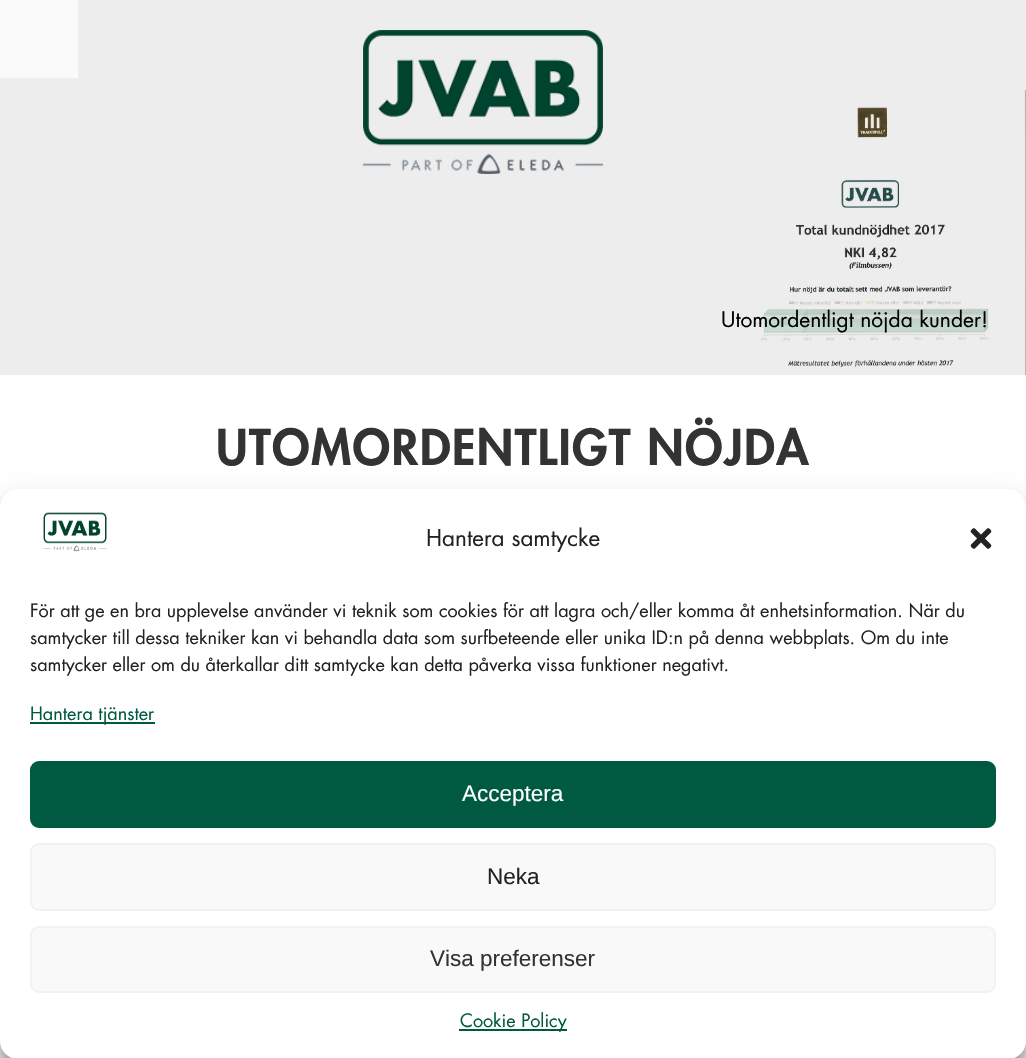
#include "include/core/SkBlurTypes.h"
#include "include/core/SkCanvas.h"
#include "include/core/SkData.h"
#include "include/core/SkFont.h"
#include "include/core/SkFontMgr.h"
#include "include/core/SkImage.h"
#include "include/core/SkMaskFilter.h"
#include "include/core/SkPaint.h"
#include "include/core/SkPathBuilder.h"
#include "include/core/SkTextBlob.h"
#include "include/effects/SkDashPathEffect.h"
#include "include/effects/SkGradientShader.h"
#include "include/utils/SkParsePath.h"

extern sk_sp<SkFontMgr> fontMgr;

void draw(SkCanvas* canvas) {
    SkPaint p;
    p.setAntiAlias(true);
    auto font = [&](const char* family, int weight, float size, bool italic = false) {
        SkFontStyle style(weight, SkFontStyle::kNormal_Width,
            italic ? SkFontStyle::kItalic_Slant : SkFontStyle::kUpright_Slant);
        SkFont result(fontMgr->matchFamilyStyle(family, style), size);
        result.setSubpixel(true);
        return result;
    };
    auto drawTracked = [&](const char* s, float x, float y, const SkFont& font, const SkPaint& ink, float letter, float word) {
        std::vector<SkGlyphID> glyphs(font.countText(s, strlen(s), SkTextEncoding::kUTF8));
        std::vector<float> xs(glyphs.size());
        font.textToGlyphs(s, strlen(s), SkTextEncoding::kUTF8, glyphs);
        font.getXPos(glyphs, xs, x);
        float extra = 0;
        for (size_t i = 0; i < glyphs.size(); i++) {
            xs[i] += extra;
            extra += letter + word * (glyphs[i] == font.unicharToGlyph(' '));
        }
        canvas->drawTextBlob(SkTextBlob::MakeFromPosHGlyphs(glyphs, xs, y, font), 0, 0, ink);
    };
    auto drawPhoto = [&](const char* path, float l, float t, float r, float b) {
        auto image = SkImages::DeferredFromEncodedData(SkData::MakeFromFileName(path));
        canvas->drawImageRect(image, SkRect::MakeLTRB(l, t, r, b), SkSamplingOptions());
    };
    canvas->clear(0xFFFFFFFF);
    p.setColor(0xFFEDEDED);
    canvas->drawRect(SkRect::MakeLTRB(0, 0, 1026, 375), p);
    p.setColor(0xFFFAFAFA);
    canvas->drawRect(SkRect::MakeLTRB(0, 0, 78, 78), p);
    drawPhoto("media/1.png", 363, 30, 603, 174);
    drawPhoto("media/2.png", 720, 90, 1026, 375);
    p.setColor(0xB3EDEDED);
    canvas->drawRect(SkRect::MakeLTRB(728, 299, 990, 341), p);
    auto font1 = font("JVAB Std", 400, 21);
    p.setColor(0xFF000000);
    canvas->drawString("Utomordentligt nöjda kunder!", 721, 327, font1, p);
    auto font2 = font("JVAB Std", 700, 48);
    p.setColor(0xFF333333);
    drawTracked("UTOMORDENTLIGT NÖJDA", 216, 465, font2, p, 1.4f, 0);
    p.setColor(0xFFF2F2F2);
    canvas->drawRect(SkRect::MakeLTRB(0, 1041, 1026, 1058), p);
    p.setColor(0x3B000000);
    p.setMaskFilter(SkMaskFilter::MakeBlur(kNormal_SkBlurStyle, 4.5f));
    canvas->drawRoundRect(SkRect::MakeLTRB(0, 498, 1026, 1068), 18, 18, p);
    p.setMaskFilter(nullptr);
    p.setColor(0x30000000);
    p.setMaskFilter(SkMaskFilter::MakeBlur(kNormal_SkBlurStyle, 15));
    canvas->drawRoundRect(SkRect::MakeLTRB(0, 504, 1026, 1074), 18, 18, p);
    p.setMaskFilter(nullptr);
    p.setColor(0xFFFFFFFF);
    canvas->drawRoundRect(SkRect::MakeLTRB(0, 489, 1026, 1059), 18, 18, p);
    drawPhoto("media/3.png", 43, 512, 107, 552);
    auto font3 = font("JVAB Std", 400, 22.5f);
    p.setColor(0xFF222222);
    canvas->drawString("Hantera samtycke", 426, 546, font3, p);
    drawPhoto("media/4.png", 970, 528, 992, 549);
    auto font4 = font("JVAB Std", 400, 18);
    {
        const struct { const char* s; float x, y; } items[] = {
            {"För att ge en bra upplevelse använder vi teknik som cookies för att lagra och/eller komma åt enhetsinformation. När du", 30, 617},
            {"samtycker till dessa tekniker kan vi behandla data som surfbeteende eller unika ID:n på denna webbplats. Om du inte", 30, 644},
            {"samtycker eller om du återkallar ditt samtycke kan detta påverka vissa funktioner negativt.", 30, 671},
        };
        for (auto [s, x, y] : items) {
            canvas->drawString(s, x, y, font4, p);
        }
    }
    p.setColor(0xFF005941);
    canvas->drawRect(SkRect::MakeLTRB(30, 722, 155, 724), p);
    canvas->drawString("Hantera tjänster", 30, 720, font4, p);
    canvas->drawRoundRect(SkRect::MakeLTRB(31, 762, 995, 827), 8, 8, p);
    p.setStyle(SkPaint::kStroke_Style);
    p.setStrokeWidth(2);
    canvas->drawRoundRect(SkRect::MakeLTRB(31, 762, 995, 827), 8, 8, p);
    auto font5 = font("Liberation Sans", 400, 22.5f);
    p.setStyle(SkPaint::kFill_Style);
    p.setColor(0xFFFFFFFF);
    canvas->drawString("Acceptera", 462, 801, font5, p);
    p.setColor(0xFFF9F9F9);
    canvas->drawRoundRect(SkRect::MakeLTRB(31, 844, 995, 910), 8, 8, p);
    p.setStyle(SkPaint::kStroke_Style);
    p.setColor(0xFFF2F2F2);
    canvas->drawRoundRect(SkRect::MakeLTRB(31, 844, 995, 910), 8, 8, p);
    p.setStyle(SkPaint::kFill_Style);
    p.setColor(0xFF222222);
    canvas->drawString("Neka", 487, 884, font5, p);
    p.setColor(0xFFF9F9F9);
    canvas->drawRoundRect(SkRect::MakeLTRB(31, 927, 995, 992), 8, 8, p);
    p.setStyle(SkPaint::kStroke_Style);
    p.setColor(0xFFF2F2F2);
    canvas->drawRoundRect(SkRect::MakeLTRB(31, 927, 995, 992), 8, 8, p);
    p.setStyle(SkPaint::kFill_Style);
    p.setColor(0xFF333333);
    canvas->drawString("Visa preferenser", 430, 966, font5, p);
    p.setColor(0xFF005941);
    canvas->drawRect(SkRect::MakeLTRB(459, 1029, 567, 1031), p);
    canvas->drawString("Cookie Policy", 460, 1027, font4, p);
}
